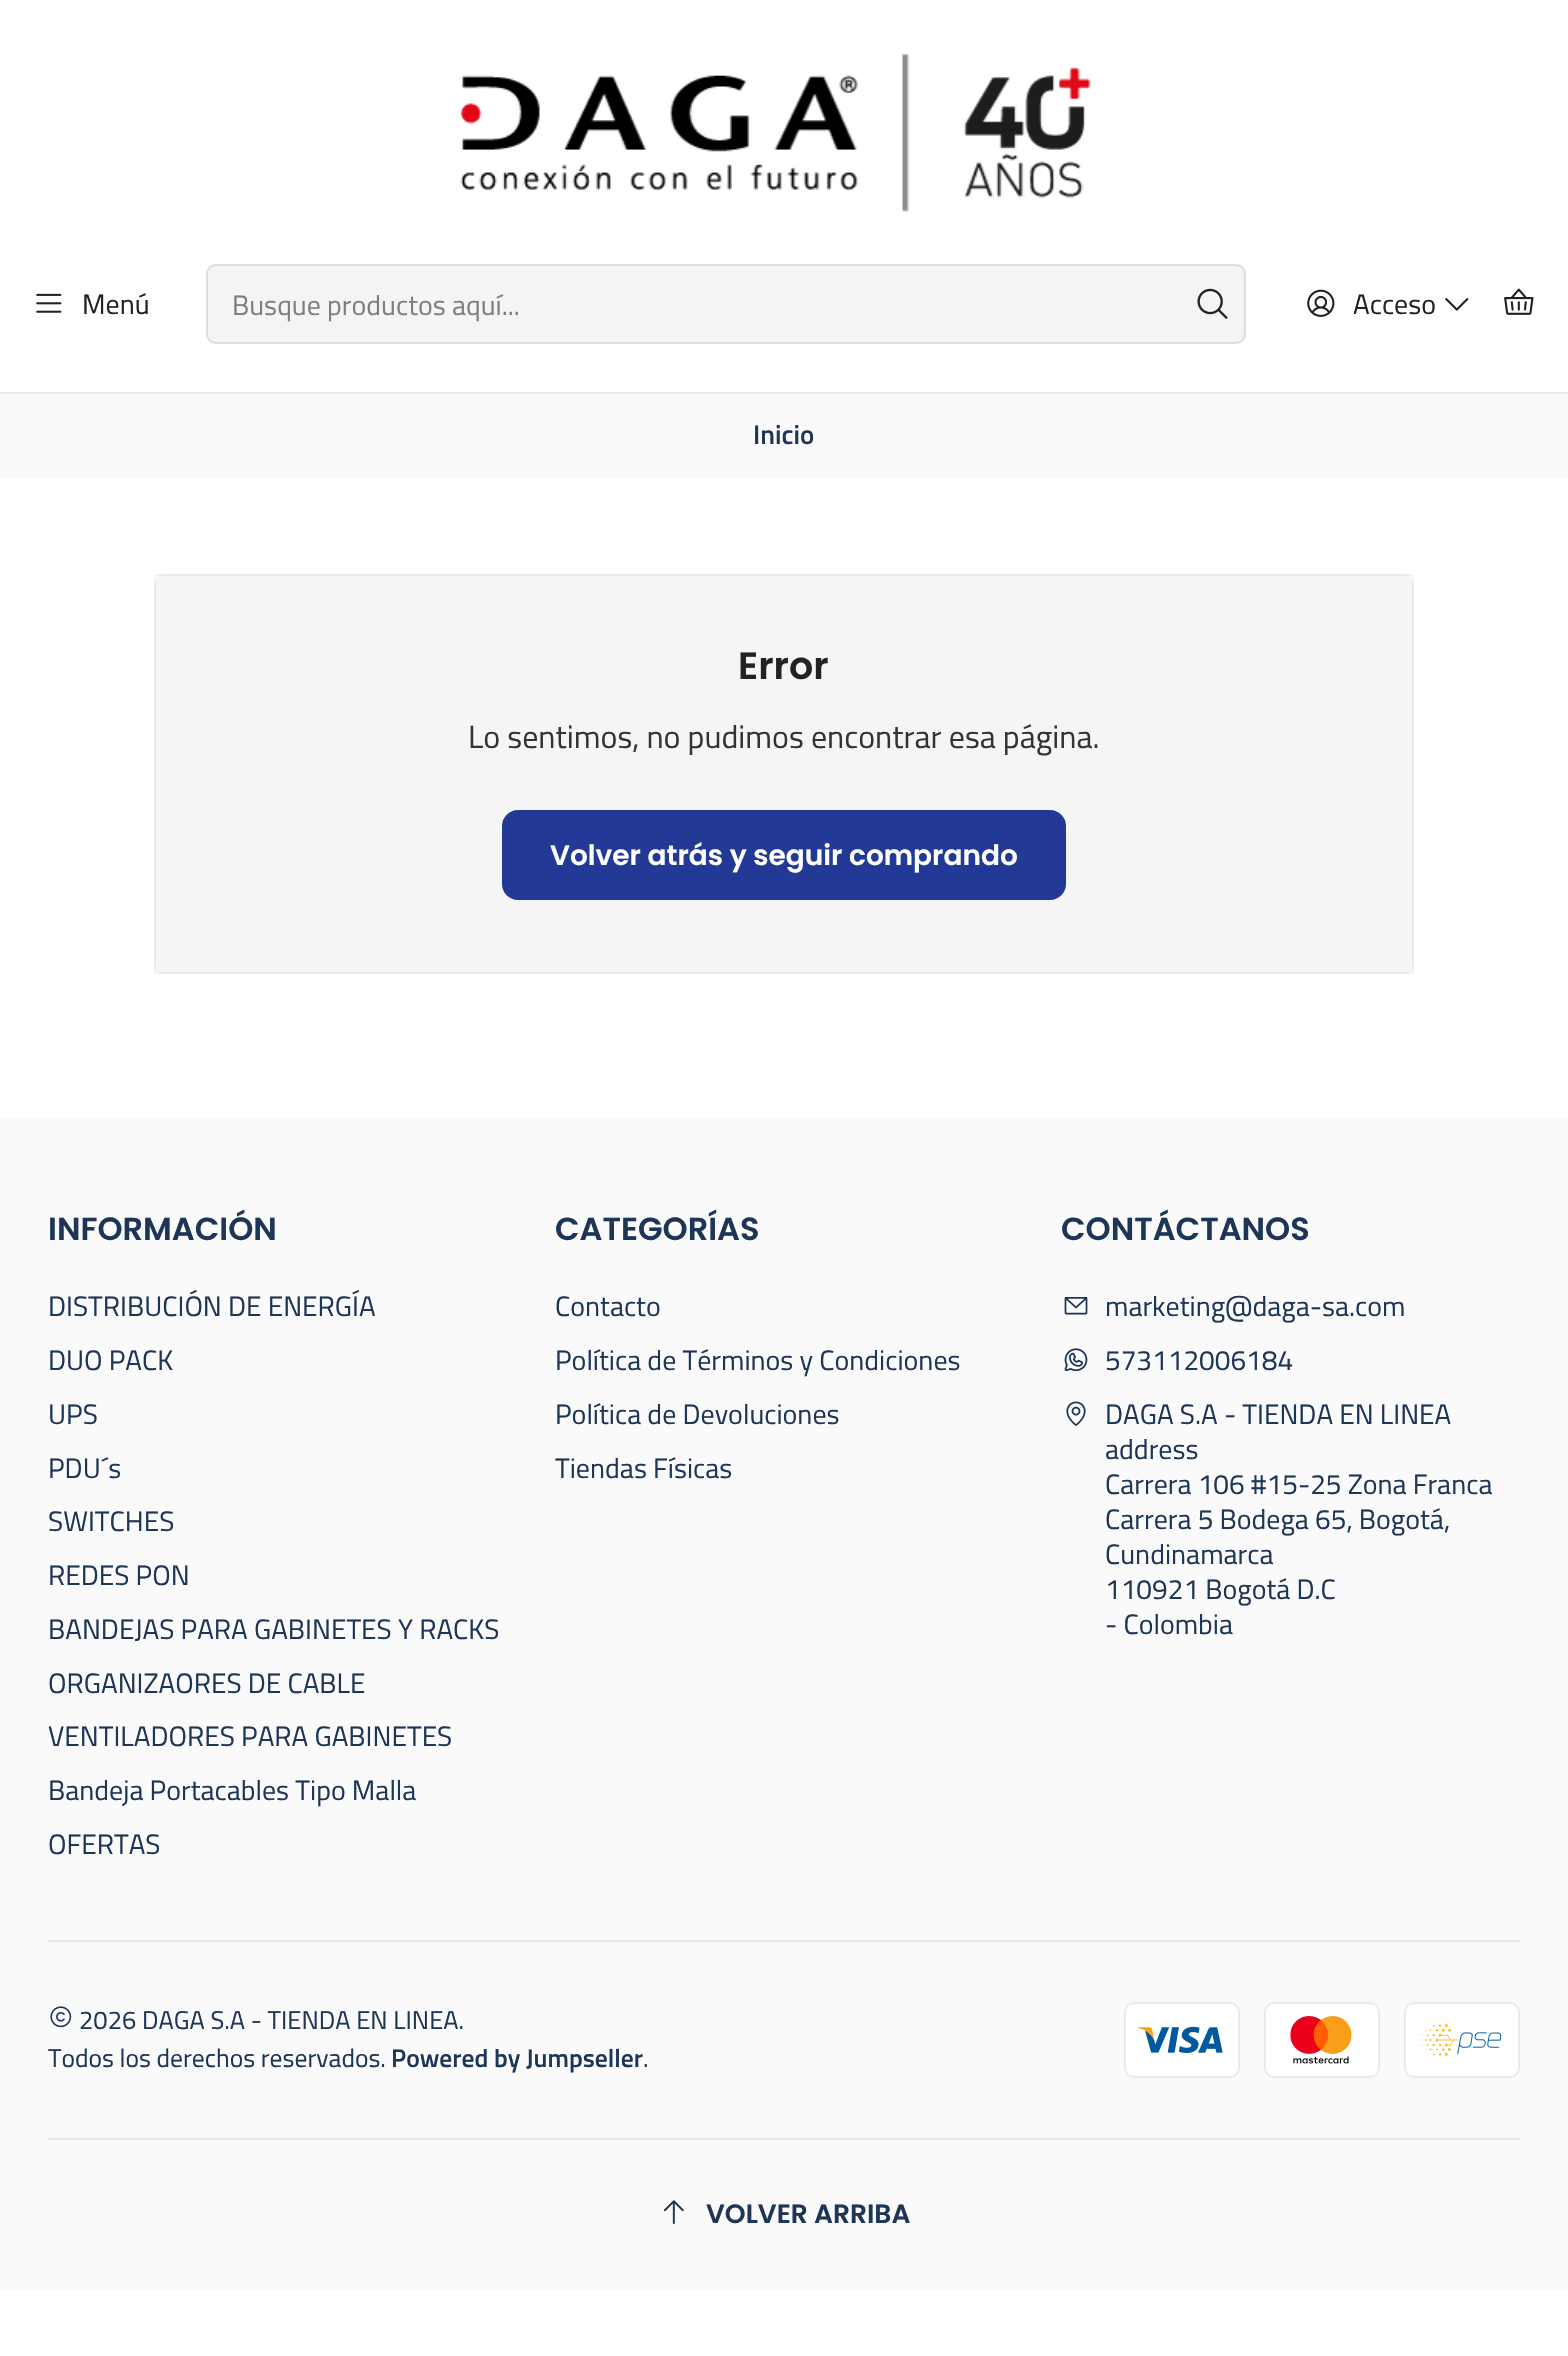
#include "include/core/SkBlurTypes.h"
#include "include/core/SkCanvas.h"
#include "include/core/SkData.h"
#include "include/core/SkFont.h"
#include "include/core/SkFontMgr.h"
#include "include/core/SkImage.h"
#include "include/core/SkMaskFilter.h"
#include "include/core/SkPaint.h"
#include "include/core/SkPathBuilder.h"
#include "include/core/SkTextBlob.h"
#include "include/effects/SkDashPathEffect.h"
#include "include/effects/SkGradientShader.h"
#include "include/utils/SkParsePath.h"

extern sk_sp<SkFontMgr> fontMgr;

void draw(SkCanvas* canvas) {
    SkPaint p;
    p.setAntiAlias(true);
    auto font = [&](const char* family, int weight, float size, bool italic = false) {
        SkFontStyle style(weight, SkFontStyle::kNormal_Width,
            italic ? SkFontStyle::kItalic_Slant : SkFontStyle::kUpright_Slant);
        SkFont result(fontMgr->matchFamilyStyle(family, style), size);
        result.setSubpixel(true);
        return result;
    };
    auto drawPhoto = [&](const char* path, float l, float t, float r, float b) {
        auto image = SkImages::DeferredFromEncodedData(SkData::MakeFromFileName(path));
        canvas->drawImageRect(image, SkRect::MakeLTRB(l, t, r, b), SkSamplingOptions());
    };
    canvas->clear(0xFFFFFFFF);
    p.setColor(0xFFE9E9E9);
    canvas->drawRect(SkRect::MakeLTRB(0, 392, 1568, 394), p);
    drawPhoto("media/1.png", 460, 53, 1091, 212);
    drawPhoto("media/2.png", 36, 293, 62, 313);
    auto font1 = font("Titillium Web", 400, 28);
    p.setColor(0xFF222222);
    canvas->drawString("Menú", 82, 314, font1, p);
    p.setColor(0xFFF4F4F4);
    canvas->drawRoundRect(SkRect::MakeLTRB(206, 264, 1246, 344), 10, 10, p);
    p.setStyle(SkPaint::kStroke_Style);
    p.setStrokeWidth(2);
    p.setColor(0x1A222222);
    canvas->drawRoundRect(SkRect::MakeLTRB(207, 265, 1245, 343), 9, 9, p);
    p.setStyle(SkPaint::kFill_Style);
    p.setColor(0xFF7E7E7E);
    canvas->drawString("Busque productos aquí...", 232, 315, font1, p);
    drawPhoto("media/3.png", 1197, 288, 1228, 319);
    drawPhoto("media/4.png", 1307, 289, 1335, 317);
    p.setColor(0xFF222222);
    canvas->drawString("Acceso", 1353, 314, font1, p);
    drawPhoto("media/5.png", 1445, 298, 1469, 311);
    drawPhoto("media/6.png", 1504, 288, 1534, 315);
    p.setColor(0xFFFAFAFA);
    canvas->drawRect(SkRect::MakeLTRB(0, 394, 1568, 478), p);
    auto font2 = font("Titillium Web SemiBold", 600, 27);
    p.setColor(0xFF1D3557);
    canvas->drawString("Inicio", 753, 444, font2, p);
    p.setColor(0xFFF5F5F5);
    canvas->drawRoundRect(SkRect::MakeLTRB(154, 574, 1414, 974), 10, 10, p);
    p.setStyle(SkPaint::kStroke_Style);
    p.setColor(0x0D222222);
    canvas->drawRect(SkRect::MakeLTRB(155, 575, 1413, 973), p);
    auto font3 = font("Poppins", 600, 38);
    p.setStyle(SkPaint::kFill_Style);
    p.setColor(0xFF222222);
    canvas->drawString("Error", 738, 679, font3, p);
    auto font4 = font("Titillium Web", 400, 32);
    p.setColor(0xFF333333);
    canvas->drawString("Lo sentimos, no pudimos encontrar esa página.", 468, 748, font4, p);
    p.setColor(0xFF223A95);
    canvas->drawRoundRect(SkRect::MakeLTRB(502, 810, 1066, 900), 16, 16, p);
    auto font5 = font("Poppins", 600, 28);
    p.setColor(0xFFFFFFFF);
    canvas->drawString("Volver atrás y seguir comprando", 550, 865, font5, p);
    p.setColor(0xFFFAFAFA);
    canvas->drawRect(SkRect::MakeLTRB(0, 1118, 1568, 2290), p);
    auto font6 = font("Poppins", 600, 32);
    p.setColor(0xFF1D3557);
    canvas->drawString("INFORMACIÓN", 48, 1240, font6, p);
    {
        const struct { const char* s; float x, y; } items[] = {
            {"DISTRIBUCIÓN DE ENERGÍA", 48, 1316},
            {"DUO PACK", 48, 1370},
            {"UPS", 48, 1424},
            {"PDU´s", 48, 1478},
            {"SWITCHES", 48, 1531},
            {"REDES PON", 48, 1585},
            {"BANDEJAS PARA GABINETES Y RACKS", 48, 1639},
            {"ORGANIZAORES DE CABLE", 48, 1693},
            {"VENTILADORES PARA GABINETES", 48, 1746},
            {"Bandeja Portacables Tipo Malla", 48, 1800},
            {"OFERTAS", 48, 1854},
        };
        for (auto [s, x, y] : items) {
            canvas->drawString(s, x, y, font1, p);
        }
    }
    canvas->drawString("CATEGORÍAS", 555, 1240, font6, p);
    {
        const struct { const char* s; float x, y; } items[] = {
            {"Contacto", 555, 1316},
            {"Política de Términos y Condiciones", 555, 1370},
            {"Política de Devoluciones", 555, 1424},
            {"Tiendas Físicas", 555, 1478},
        };
        for (auto [s, x, y] : items) {
            canvas->drawString(s, x, y, font1, p);
        }
    }
    canvas->drawString("CONTÁCTANOS", 1061, 1240, font6, p);
    drawPhoto("media/7.png", 1064, 1297, 1088, 1315);
    canvas->drawString("marketing@daga-sa.com", 1105, 1316, font1, p);
    drawPhoto("media/8.png", 1064, 1348, 1088, 1372);
    canvas->drawString("573112006184", 1105, 1370, font1, p);
    drawPhoto("media/9.png", 1066, 1401, 1086, 1426);
    {
        const struct { const char* s; float x, y; } items[] = {
            {"DAGA S.A - TIENDA EN LINEA", 1105, 1424},
            {"address", 1105, 1459},
            {"Carrera 106 #15-25 Zona Franca", 1105, 1494},
            {"Carrera 5 Bodega 65, Bogotá,", 1105, 1529},
            {"Cundinamarca", 1105, 1564},
            {"110921 Bogotá D.C", 1105, 1599},
            {"- Colombia", 1105, 1634},
        };
        for (auto [s, x, y] : items) {
            canvas->drawString(s, x, y, font1, p);
        }
    }
    p.setColor(0xFFE4E6EA);
    canvas->drawRect(SkRect::MakeLTRB(48, 1940, 1520, 1942), p);
    drawPhoto("media/10.png", 50, 2006, 72, 2028);
    auto font7 = font("Titillium Web", 400, 25.6f);
    p.setColor(0xFF1D3557);
    canvas->drawString("2026 DAGA S.A - TIENDA EN LINEA.", 79, 2029, font7, p);
    canvas->drawString("Todos los derechos reservados.", 48, 2067, font7, p);
    auto font8 = font("Titillium Web SemiBold", 600, 25.6f);
    canvas->drawString("Powered by Jumpseller", 391, 2067, font8, p);
    canvas->drawString(".", 643, 2067, font7, p);
    p.setColor(0xFFFFFFFF);
    canvas->drawRoundRect(SkRect::MakeLTRB(1125, 2003, 1239, 2077), 9, 9, p);
    p.setStyle(SkPaint::kStroke_Style);
    p.setColor(0xFFE8EBEE);
    canvas->drawRoundRect(SkRect::MakeLTRB(1125, 2003, 1239, 2077), 9, 9, p);
    drawPhoto("media/11.png", 1138, 2026, 1223, 2053);
    p.setStyle(SkPaint::kFill_Style);
    p.setColor(0xFFFFFFFF);
    canvas->drawRoundRect(SkRect::MakeLTRB(1265, 2003, 1379, 2077), 9, 9, p);
    p.setStyle(SkPaint::kStroke_Style);
    p.setColor(0xFFE8EBEE);
    canvas->drawRoundRect(SkRect::MakeLTRB(1265, 2003, 1379, 2077), 9, 9, p);
    drawPhoto("media/12.png", 1290, 2016, 1352, 2064);
    p.setStyle(SkPaint::kFill_Style);
    p.setColor(0xFFFFFFFF);
    canvas->drawRoundRect(SkRect::MakeLTRB(1405, 2003, 1519, 2077), 9, 9, p);
    p.setStyle(SkPaint::kStroke_Style);
    p.setColor(0xFFE8EBEE);
    canvas->drawRoundRect(SkRect::MakeLTRB(1405, 2003, 1519, 2077), 9, 9, p);
    drawPhoto("media/13.png", 1420, 2024, 1502, 2056);
    p.setStyle(SkPaint::kFill_Style);
    p.setColor(0xFFE4E6EA);
    canvas->drawRect(SkRect::MakeLTRB(48, 2138, 1520, 2140), p);
    drawPhoto("media/14.png", 664, 2200, 684, 2224);
    auto font9 = font("Poppins", 600, 26.5f);
    p.setColor(0xFF1D3557);
    canvas->drawString("VOLVER ARRIBA", 706, 2223, font9, p);
}
